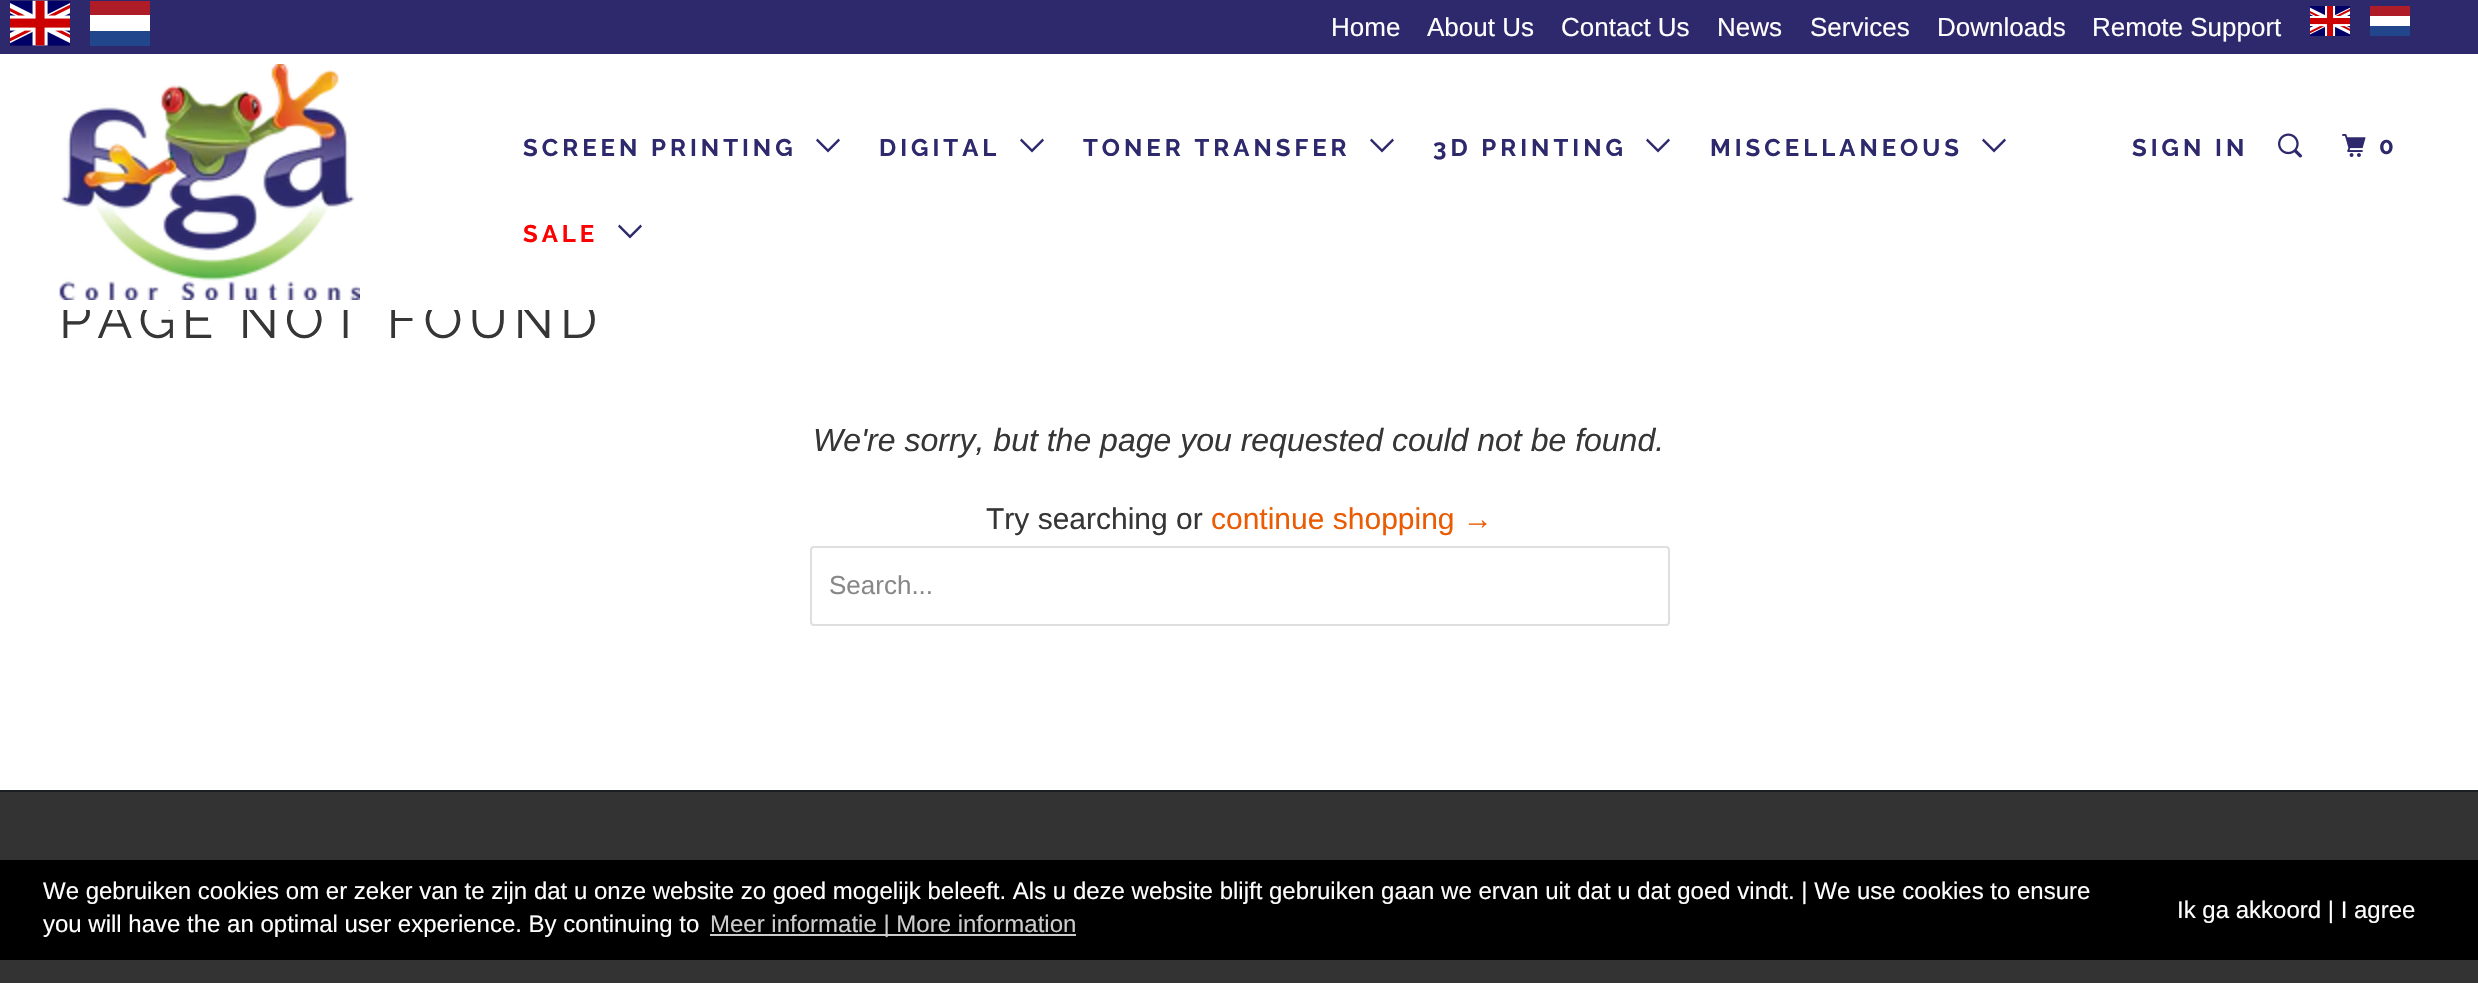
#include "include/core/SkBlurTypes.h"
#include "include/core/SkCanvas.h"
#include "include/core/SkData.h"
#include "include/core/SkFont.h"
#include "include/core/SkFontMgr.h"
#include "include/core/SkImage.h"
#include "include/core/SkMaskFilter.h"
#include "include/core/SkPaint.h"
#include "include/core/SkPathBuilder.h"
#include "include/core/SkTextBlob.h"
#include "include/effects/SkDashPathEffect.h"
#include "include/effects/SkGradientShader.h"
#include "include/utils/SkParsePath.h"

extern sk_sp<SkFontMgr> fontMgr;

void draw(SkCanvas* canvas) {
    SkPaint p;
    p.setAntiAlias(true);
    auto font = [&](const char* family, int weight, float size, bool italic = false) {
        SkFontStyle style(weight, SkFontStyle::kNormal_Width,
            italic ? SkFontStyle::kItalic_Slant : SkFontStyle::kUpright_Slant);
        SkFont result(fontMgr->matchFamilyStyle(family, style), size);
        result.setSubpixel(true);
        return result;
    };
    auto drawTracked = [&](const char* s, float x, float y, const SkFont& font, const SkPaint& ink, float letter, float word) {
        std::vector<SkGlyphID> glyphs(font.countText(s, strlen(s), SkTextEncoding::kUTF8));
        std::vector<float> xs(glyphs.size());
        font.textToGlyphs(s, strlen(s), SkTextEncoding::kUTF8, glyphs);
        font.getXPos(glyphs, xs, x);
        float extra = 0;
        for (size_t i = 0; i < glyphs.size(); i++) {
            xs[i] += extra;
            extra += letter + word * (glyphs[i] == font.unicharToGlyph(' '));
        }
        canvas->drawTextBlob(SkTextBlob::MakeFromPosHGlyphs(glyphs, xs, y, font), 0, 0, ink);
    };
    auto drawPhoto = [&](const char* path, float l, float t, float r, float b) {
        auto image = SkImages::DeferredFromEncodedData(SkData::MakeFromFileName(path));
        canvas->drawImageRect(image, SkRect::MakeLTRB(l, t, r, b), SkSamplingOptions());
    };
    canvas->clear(0xFFFFFFFF);
    p.setColor(0xFF2D296C);
    canvas->drawRect(SkRect::MakeLTRB(0, 0, 2478, 54), p);
    drawPhoto("media/1.png", 10, 0, 70, 46);
    {
        const struct { float l, t, r, b; SkColor color; } items[] = {
            {90, 1, 150, 15, 0xFFAE1C28},
            {90, 15, 150, 31, 0xFFFFFFFF},
            {90, 31, 150, 46, 0xFF21468B},
        };
        for (auto [l, t, r, b, color] : items) {
            p.setColor(color);
            canvas->drawRect(SkRect::MakeLTRB(l, t, r, b), p);
        }
    }
    auto font1 = font("Liberation Sans", 400, 26);
    p.setColor(0xFFFFFFFF);
    {
        const struct { const char* s; float x, y; } items[] = {
            {"Home", 1331, 36},
            {"About Us", 1427, 36},
            {"Contact Us", 1561, 36},
            {"News", 1717, 36},
            {"Services", 1810, 36},
            {"Downloads", 1937, 36},
            {"Remote Support", 2092, 36},
        };
        for (auto [s, x, y] : items) {
            canvas->drawString(s, x, y, font1, p);
        }
    }
    drawPhoto("media/2.png", 2310, 6, 2350, 36);
    {
        const struct { float l, t, r, b; SkColor color; } items[] = {
            {2370, 6, 2410, 16, 0xFFAE1C28},
            {2370, 16, 2410, 26, 0xFFFFFFFF},
            {2370, 26, 2410, 36, 0xFF21468B},
        };
        for (auto [l, t, r, b, color] : items) {
            p.setColor(color);
            canvas->drawRect(SkRect::MakeLTRB(l, t, r, b), p);
        }
    }
    auto font2 = font("Raleway", 400, 52);
    p.setColor(0xFF363636);
    drawTracked("PAGE NOT FOUND", 59, 338, font2, p, 6, 0);
    p.setColor(0xFFFFFFFF);
    canvas->drawRect(SkRect::MakeLTRB(63, 300, 593, 310), p);
    drawPhoto("media/3.png", 59, 64, 360, 300);
    auto font3 = font("Raleway", 700, 24);
    p.setColor(0xFF2D296C);
    drawTracked("SCREEN PRINTING", 523, 156, font3, p, 4, 0);
    canvas->drawPath(SkPathBuilder().moveTo(822, 146.5f).lineTo(816, 140.5f).lineTo(817.5f, 138.5f).lineTo(828, 149).lineTo(838.5f, 138.5f).lineTo(840, 140.5f).lineTo(828, 152.5f).close().detach(), p);
    drawTracked("DIGITAL", 879, 156, font3, p, 4, 0);
    canvas->drawPath(SkPathBuilder().moveTo(1026, 146.5f).lineTo(1020, 140.5f).lineTo(1021.5f, 138.5f).lineTo(1032, 149).lineTo(1042.5f, 138.5f).lineTo(1044, 140.5f).lineTo(1032, 152.5f).close().detach(), p);
    drawTracked("TONER TRANSFER", 1083, 156, font3, p, 4, 0);
    canvas->drawPath(SkPathBuilder().moveTo(1376, 146.5f).lineTo(1370, 140.5f).lineTo(1371.5f, 138.5f).lineTo(1382, 149).lineTo(1392.5f, 138.5f).lineTo(1394, 140.5f).lineTo(1382, 152.5f).close().detach(), p);
    drawTracked("3D PRINTING", 1433, 156, font3, p, 4, 0);
    canvas->drawPath(SkPathBuilder().moveTo(1652, 146.5f).lineTo(1646, 140.5f).lineTo(1647.5f, 138.5f).lineTo(1658, 149).lineTo(1668.5f, 138.5f).lineTo(1670, 140.5f).lineTo(1658, 152.5f).close().detach(), p);
    drawTracked("MISCELLANEOUS", 1710, 156, font3, p, 4, 0);
    canvas->drawPath(SkPathBuilder().moveTo(1988, 146.5f).lineTo(1982, 140.5f).lineTo(1983.5f, 138.5f).lineTo(1994, 149).lineTo(2004.5f, 138.5f).lineTo(2006, 140.5f).lineTo(1994, 152.5f).close().detach(), p);
    p.setColor(0xFFFF0000);
    drawTracked("SALE", 523, 242, font3, p, 4, 0);
    p.setColor(0xFF2D296C);
    canvas->drawPath(SkPathBuilder().moveTo(624, 232.5f).lineTo(618, 226.5f).lineTo(619.5f, 224.5f).lineTo(630, 235).lineTo(640.5f, 224.5f).lineTo(642, 226.5f).lineTo(630, 238.5f).close().detach(), p);
    drawTracked("SIGN IN", 2132, 156, font3, p, 4, 0);
    drawPhoto("media/4.png", 2278, 133, 2302, 158);
    drawPhoto("media/5.png", 2342, 134, 2366, 157);
    drawTracked("0", 2379, 154, font3, p, 4, 0);
    auto font4 = font("Liberation Sans", 400, 32, true);
    p.setColor(0xFF363636);
    canvas->drawString("We're sorry, but the page you requested could not be found.", 813, 451, font4, p);
    auto font5 = font("Liberation Sans", 400, 30);
    canvas->drawString("Try searching or", 986, 529, font5, p);
    p.setColor(0xFFEA5B03);
    canvas->drawString("continue shopping →", 1211, 529, font5, p);
    p.setStyle(SkPaint::kStroke_Style);
    p.setStrokeWidth(2);
    p.setColor(0xFFDFDFDF);
    canvas->drawRoundRect(SkRect::MakeLTRB(811, 547, 1669, 625), 3, 3, p);
    p.setStyle(SkPaint::kFill_Style);
    p.setColor(0xFF888888);
    canvas->drawString("Search...", 829, 594, font1, p);
    {
        const struct { float l, t, r, b; SkColor color; } items[] = {
            {0, 792, 2478, 983, 0xFF333333},
            {0, 790, 2478, 792, 0xFF1B1F23},
            {0, 860, 2478, 960, 0xFF000000},
        };
        for (auto [l, t, r, b, color] : items) {
            p.setColor(color);
            canvas->drawRect(SkRect::MakeLTRB(l, t, r, b), p);
        }
    }
    auto font6 = font("Liberation Sans", 400, 24);
    p.setColor(0xFFFFFFFF);
    canvas->drawString("We gebruiken cookies om er zeker van te zijn dat u onze website zo goed mogelijk beleeft. Als u deze website blijft gebruiken gaan we ervan uit dat u dat goed vindt. | We use cookies to ensure", 43, 899, font6, p);
    canvas->drawString("you will have the an optimal user experience. By continuing to", 43, 932, font6, p);
    p.setColor(0xFFCCCCCC);
    canvas->drawRect(SkRect::MakeLTRB(710, 934, 1076, 936), p);
    canvas->drawString("Meer informatie | More information", 710, 932, font6, p);
    p.setColor(0xFFFFFFFF);
    canvas->drawString("Ik ga akkoord | I agree", 2177, 918, font6, p);
}
